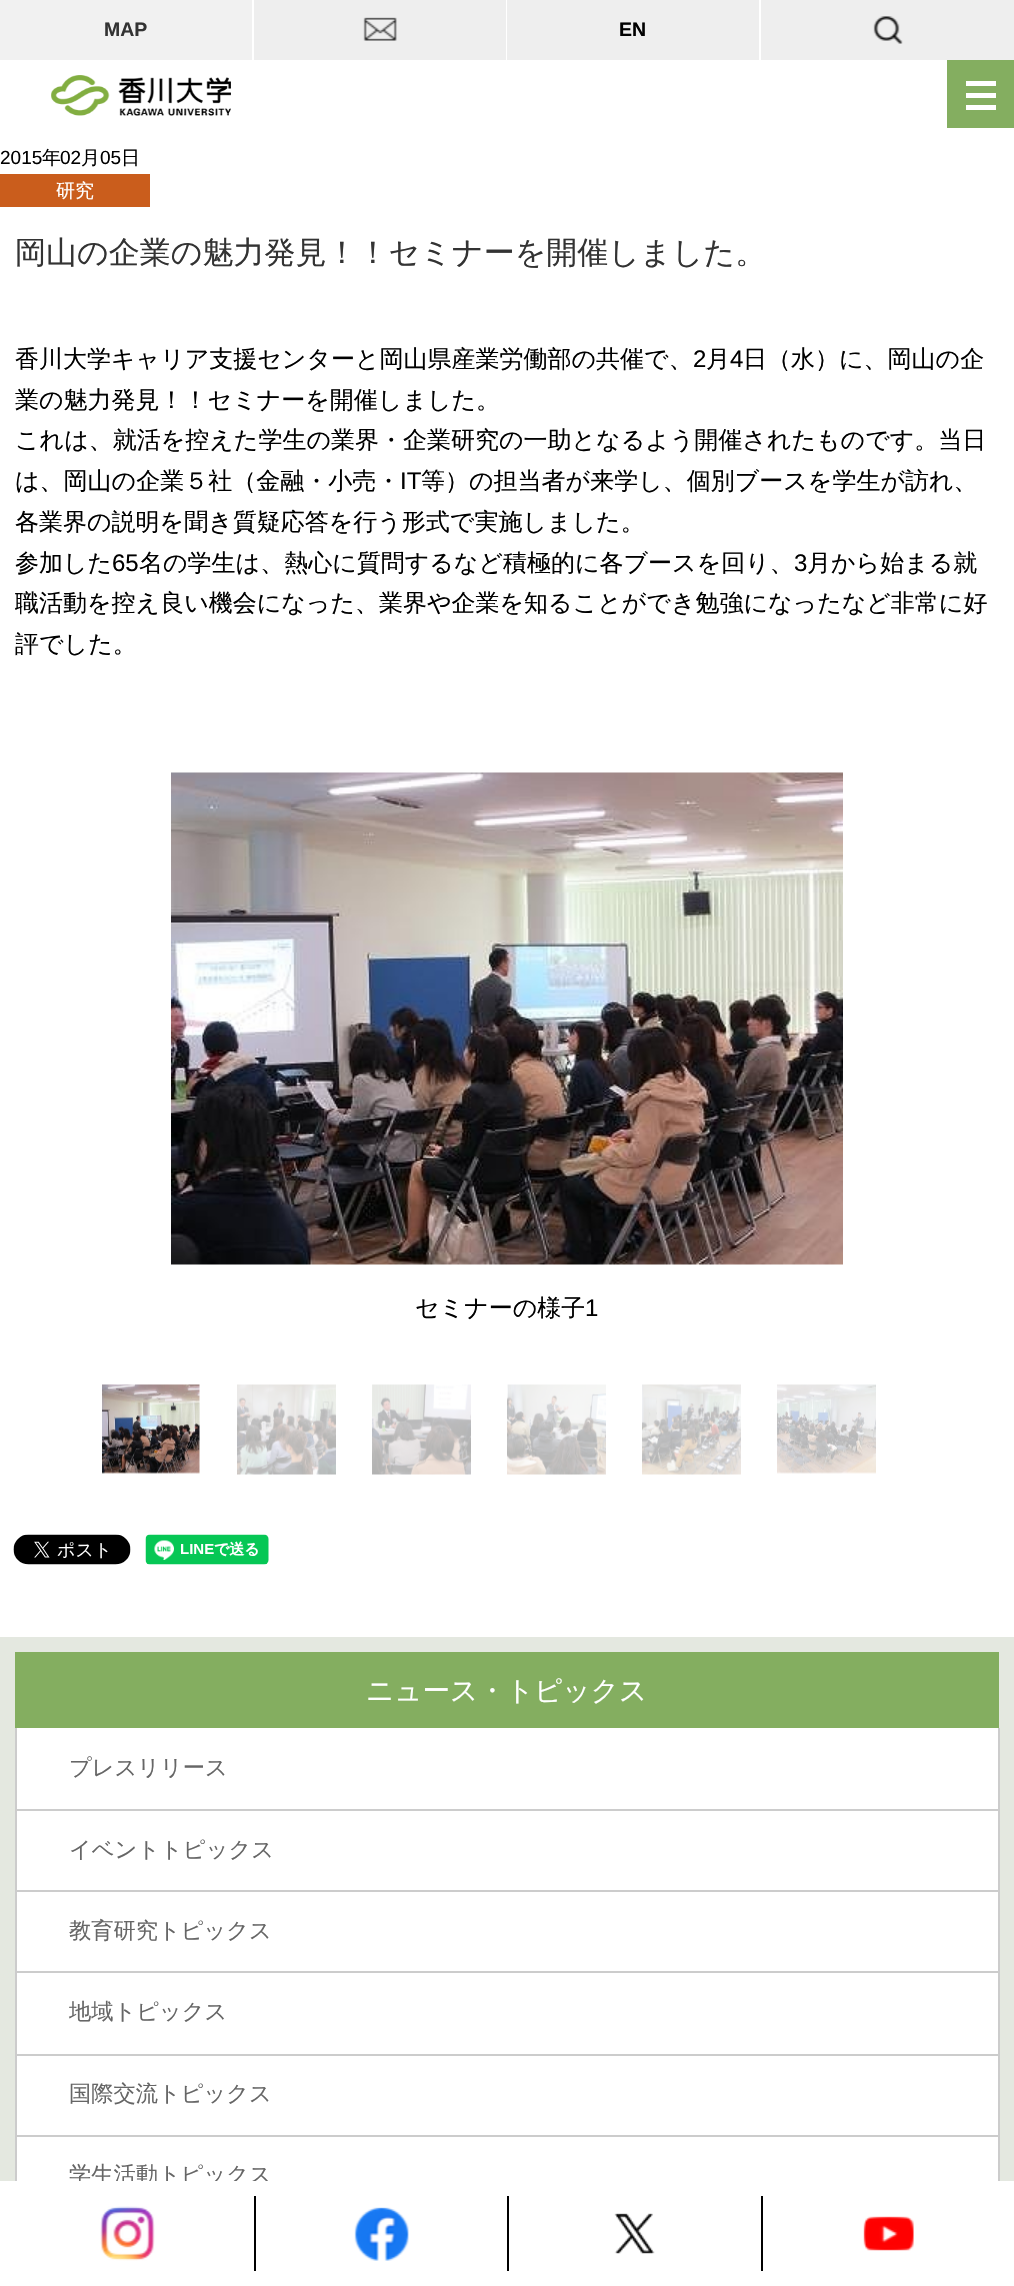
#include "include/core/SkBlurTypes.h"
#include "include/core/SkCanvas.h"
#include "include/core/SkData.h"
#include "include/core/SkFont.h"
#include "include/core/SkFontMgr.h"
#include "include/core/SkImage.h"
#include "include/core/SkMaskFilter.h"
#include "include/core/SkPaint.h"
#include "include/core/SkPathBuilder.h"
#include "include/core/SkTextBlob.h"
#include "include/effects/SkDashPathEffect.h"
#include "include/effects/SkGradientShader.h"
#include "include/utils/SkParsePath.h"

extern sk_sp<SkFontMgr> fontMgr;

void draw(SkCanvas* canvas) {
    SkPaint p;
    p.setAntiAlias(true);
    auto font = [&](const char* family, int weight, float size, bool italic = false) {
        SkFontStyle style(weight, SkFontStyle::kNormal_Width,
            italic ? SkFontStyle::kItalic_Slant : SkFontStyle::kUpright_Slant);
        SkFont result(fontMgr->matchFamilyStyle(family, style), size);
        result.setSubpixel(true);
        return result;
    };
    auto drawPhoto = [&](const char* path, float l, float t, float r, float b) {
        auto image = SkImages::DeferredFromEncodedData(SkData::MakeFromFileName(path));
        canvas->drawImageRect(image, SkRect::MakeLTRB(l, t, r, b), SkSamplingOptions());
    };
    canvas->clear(0xFFFFFFFF);
    p.setColor(0xFFF1F1F1);
    canvas->drawRect(SkRect::MakeLTRB(0, 0, 252, 60), p);
    auto font1 = font("Liberation Sans", 700, 19.5f);
    p.setColor(0xFF333333);
    canvas->drawString("MAP", 104, 36, font1, p);
    p.setColor(0xFFEEEEEE);
    canvas->drawRect(SkRect::MakeLTRB(254, 0, 506, 60), p);
    drawPhoto("media/1.png", 363, 17, 397, 41);
    canvas->drawRect(SkRect::MakeLTRB(507, 0, 759, 60), p);
    p.setColor(0xFF000000);
    canvas->drawString("EN", 619, 36, font1, p);
    p.setColor(0xFFEEEEEE);
    canvas->drawRect(SkRect::MakeLTRB(761, 0, 1014, 60), p);
    drawPhoto("media/2.png", 873, 16, 903, 44);
    drawPhoto("media/3.png", 51, 75, 231, 116);
    {
        const struct { float l, t, r, b; SkColor color; } items[] = {
            {947, 60, 1014, 128, 0xFF84AE60},
            {966, 81, 996, 86, 0xFFFFFFFF},
            {966, 93, 996, 98, 0xFFFFFFFF},
            {966, 105, 996, 110, 0xFFFFFFFF},
        };
        for (auto [l, t, r, b, color] : items) {
            p.setColor(color);
            canvas->drawRect(SkRect::MakeLTRB(l, t, r, b), p);
        }
    }
    auto font2 = font("Liberation Sans", 400, 19);
    p.setColor(0xFF000000);
    canvas->drawString("2015", 0, 164, font2, p);
    auto font3 = font("WenQuanYi Zen Hei", 500, 19);
    canvas->drawString("年", 42, 164, font3, p);
    canvas->drawString("02", 60, 164, font2, p);
    canvas->drawString("月", 81, 164, font3, p);
    canvas->drawString("05", 100, 164, font2, p);
    canvas->drawString("日", 121, 164, font3, p);
    p.setColor(0xFFCA5D1C);
    canvas->drawRect(SkRect::MakeLTRB(0, 174, 150, 207), p);
    p.setColor(0xFFFFFFFF);
    canvas->drawString("研究", 56, 197, font3, p);
    auto font4 = font("WenQuanYi Zen Hei", 500, 31);
    p.setColor(0xFF333333);
    canvas->drawString("岡山の企業の魅力発見！！セミナーを開催しました。", 15, 263, font4, p);
    auto font5 = font("WenQuanYi Zen Hei", 500, 24);
    p.setColor(0xFF000000);
    canvas->drawString("香川大学キャリア支援センターと岡山県産業労働部の共催で、", 15, 367, font5, p);
    auto font6 = font("Liberation Sans", 400, 24);
    canvas->drawString("2", 693, 367, font6, p);
    canvas->drawString("月", 706, 367, font5, p);
    canvas->drawString("4", 730, 367, font6, p);
    {
        const struct { const char* s; float x, y; } items[] = {
            {"日（水）に、岡山の企", 743, 367},
            {"業の魅力発見！！セミナーを開催しました。", 15, 408},
            {"これは、就活を控えた学生の業界・企業研究の一助となるよう開催されたものです。当日", 15, 448},
            {"は、岡山の企業５社（金融・小売・", 15, 489},
        };
        for (auto [s, x, y] : items) {
            canvas->drawString(s, x, y, font5, p);
        }
    }
    canvas->drawString("IT", 400, 489, font6, p);
    {
        const struct { const char* s; float x, y; } items[] = {
            {"等）の担当者が来学し、個別ブースを学生が訪れ、", 421, 489},
            {"各業界の説明を聞き質疑応答を行う形式で実施しました。", 15, 530},
            {"参加した", 15, 571},
        };
        for (auto [s, x, y] : items) {
            canvas->drawString(s, x, y, font5, p);
        }
    }
    canvas->drawString("65", 112, 571, font6, p);
    canvas->drawString("名の学生は、熱心に質問するなど積極的に各ブースを回り、", 139, 571, font5, p);
    canvas->drawString("3", 794, 571, font6, p);
    {
        const struct { const char* s; float x, y; } items[] = {
            {"月から始まる就", 807, 571},
            {"職活動を控え良い機会になった、業界や企業を知ることができ勉強になったなど非常に好", 15, 611},
            {"評でした。", 15, 652},
        };
        for (auto [s, x, y] : items) {
            canvas->drawString(s, x, y, font5, p);
        }
    }
    drawPhoto("media/4.png", 171, 772, 843, 1265);
    canvas->drawString("セミナーの様子", 415, 1316, font5, p);
    canvas->drawString("1", 585, 1316, font6, p);
    drawPhoto("media/5.png", 102, 1384, 200, 1474);
    drawPhoto("media/6.png", 237, 1384, 336, 1475);
    drawPhoto("media/7.png", 372, 1384, 471, 1475);
    drawPhoto("media/8.png", 507, 1384, 606, 1475);
    drawPhoto("media/9.png", 642, 1384, 741, 1475);
    drawPhoto("media/10.png", 777, 1384, 876, 1474);
    drawPhoto("media/11.png", 13, 1534, 131, 1565);
    drawPhoto("media/12.png", 145, 1534, 269, 1565);
    p.setColor(0xFFE4E8E0);
    canvas->drawRect(SkRect::MakeLTRB(0, 1637, 1014, 2181), p);
    p.setColor(0xFF84AE60);
    canvas->drawRect(SkRect::MakeLTRB(15, 1652, 999, 1728), p);
    auto font7 = font("WenQuanYi Zen Hei", 500, 27.6f);
    p.setColor(0xFFFFFFFF);
    canvas->drawString("ニュース・トピックス", 366, 1700, font7, p);
    {
        const struct { float l, t, r, b; SkColor color; } items[] = {
            {17, 1728, 998, 2181, 0xFFFFFFFF},
            {998, 1728, 1000, 2181, 0xFFCCCCCC},
            {15, 1728, 17, 2181, 0xFFCCCCCC},
        };
        for (auto [l, t, r, b, color] : items) {
            p.setColor(color);
            canvas->drawRect(SkRect::MakeLTRB(l, t, r, b), p);
        }
    }
    auto font8 = font("WenQuanYi Zen Hei", 500, 22.25f);
    p.setColor(0xFF666666);
    canvas->drawString("プレスリリース", 69, 1775, font8, p);
    p.setColor(0xFFCCCCCC);
    canvas->drawRect(SkRect::MakeLTRB(17, 1809, 998, 1811), p);
    p.setColor(0xFF666666);
    canvas->drawString("イベントトピックス", 69, 1857, font8, p);
    p.setColor(0xFFCCCCCC);
    canvas->drawRect(SkRect::MakeLTRB(17, 1890, 998, 1892), p);
    p.setColor(0xFF666666);
    canvas->drawString("教育研究トピックス", 69, 1938, font8, p);
    p.setColor(0xFFCCCCCC);
    canvas->drawRect(SkRect::MakeLTRB(17, 1971, 998, 1973), p);
    p.setColor(0xFF666666);
    canvas->drawString("地域トピックス", 69, 2019, font8, p);
    p.setColor(0xFFCCCCCC);
    canvas->drawRect(SkRect::MakeLTRB(17, 2054, 998, 2056), p);
    p.setColor(0xFF666666);
    canvas->drawString("国際交流トピックス", 69, 2101, font8, p);
    p.setColor(0xFFCCCCCC);
    canvas->drawRect(SkRect::MakeLTRB(17, 2135, 998, 2137), p);
    p.setColor(0xFF666666);
    canvas->drawString("学生活動トピックス", 69, 2182, font8, p);
    p.setColor(0xFFFFFFFF);
    canvas->drawRect(SkRect::MakeLTRB(76, 2181, 270, 2185), p);
    drawPhoto("media/13.png", 100, 2206, 155, 2261);
    p.setColor(0xFF000000);
    canvas->drawRect(SkRect::MakeLTRB(254, 2196, 256, 2271), p);
    drawPhoto("media/14.png", 354, 2207, 409, 2261);
    canvas->drawRect(SkRect::MakeLTRB(507, 2196, 509, 2271), p);
    drawPhoto("media/15.png", 614, 2213, 655, 2254);
    canvas->drawRect(SkRect::MakeLTRB(761, 2196, 763, 2271), p);
    drawPhoto("media/16.png", 863, 2216, 914, 2251);
}
